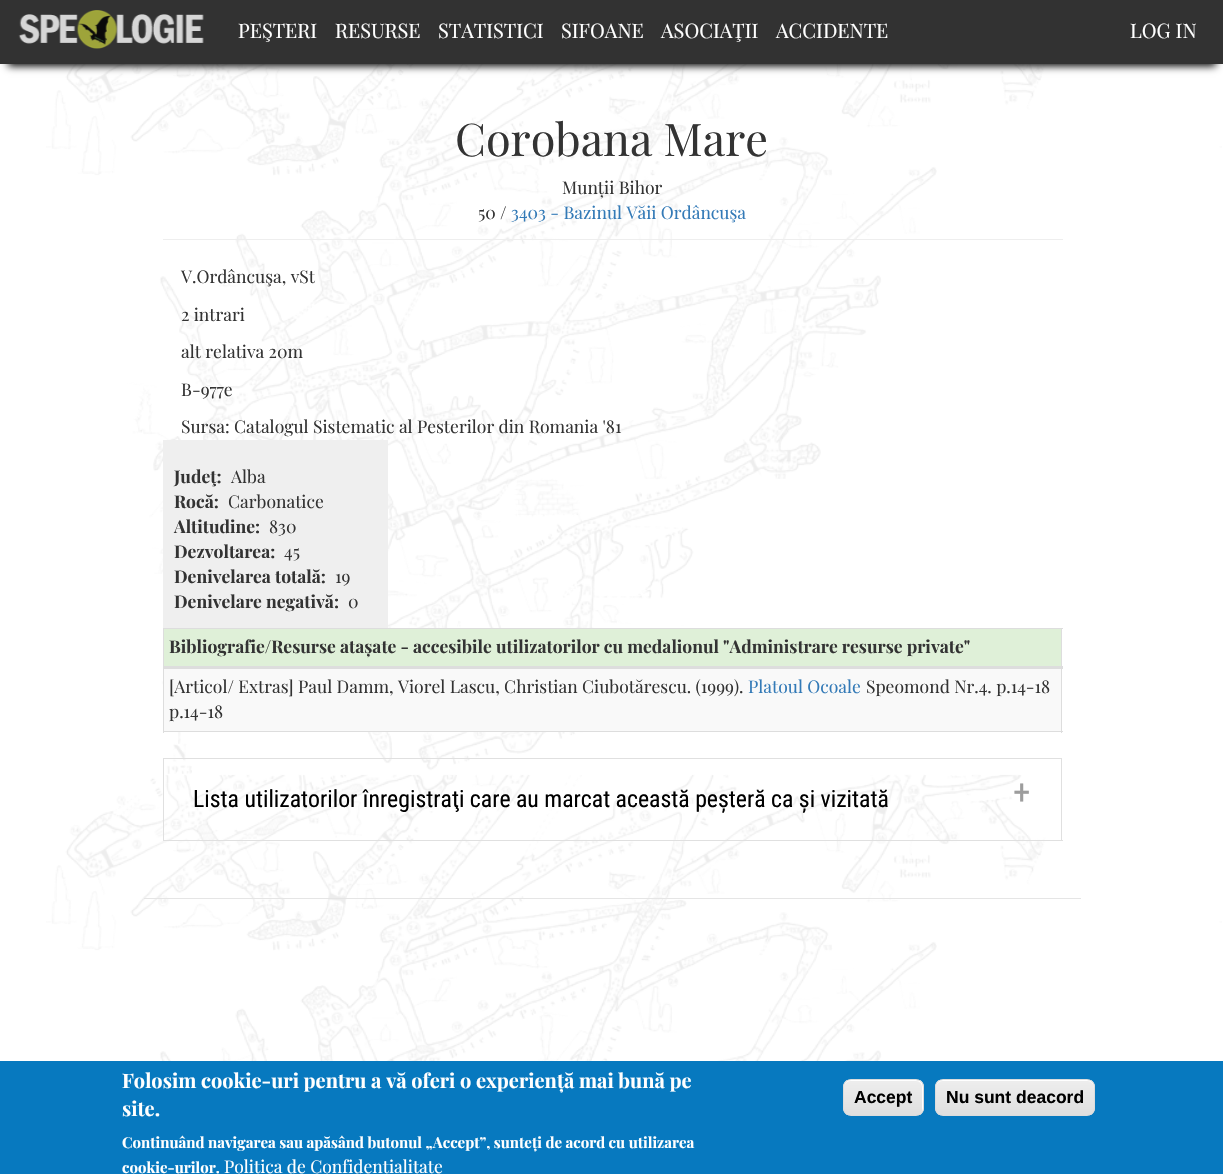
#include "include/core/SkBlurTypes.h"
#include "include/core/SkCanvas.h"
#include "include/core/SkData.h"
#include "include/core/SkFont.h"
#include "include/core/SkFontMgr.h"
#include "include/core/SkImage.h"
#include "include/core/SkMaskFilter.h"
#include "include/core/SkPaint.h"
#include "include/core/SkPathBuilder.h"
#include "include/core/SkTextBlob.h"
#include "include/effects/SkDashPathEffect.h"
#include "include/effects/SkGradientShader.h"
#include "include/utils/SkParsePath.h"

extern sk_sp<SkFontMgr> fontMgr;

void draw(SkCanvas* canvas) {
    SkPaint p;
    p.setAntiAlias(true);
    auto font = [&](const char* family, int weight, float size, bool italic = false) {
        SkFontStyle style(weight, SkFontStyle::kNormal_Width,
            italic ? SkFontStyle::kItalic_Slant : SkFontStyle::kUpright_Slant);
        SkFont result(fontMgr->matchFamilyStyle(family, style), size);
        result.setSubpixel(true);
        return result;
    };
    auto drawPhoto = [&](const char* path, float l, float t, float r, float b) {
        auto image = SkImages::DeferredFromEncodedData(SkData::MakeFromFileName(path));
        canvas->drawImageRect(image, SkRect::MakeLTRB(l, t, r, b), SkSamplingOptions());
    };
    canvas->clear(0xFFFFFFFF);
    drawPhoto("media/1.png", 46, 64, 1222, 1061);
    p.setColor(0xFF000000);
    p.setMaskFilter(SkMaskFilter::MakeBlur(kNormal_SkBlurStyle, 4));
    canvas->drawRect(SkRect::MakeLTRB(8, 18, 1216, 66), p);
    p.setMaskFilter(nullptr);
    p.setColor(0xFF323232);
    canvas->drawRect(SkRect::MakeLTRB(0, 0, 1223, 64), p);
    drawPhoto("media/2.png", 18, 10, 204, 49);
    auto font1 = font("Playfair Display", 400, 20);
    p.setColor(0xFFFFFFFF);
    {
        const struct { const char* s; float x, y; } items[] = {
            {"PEŞTERI", 238, 38},
            {"RESURSE", 335, 38},
            {"STATISTICI", 438, 38},
            {"SIFOANE", 561, 38},
            {"ASOCIAŢII", 661, 38},
            {"ACCIDENTE", 776, 38},
            {"LOG IN", 1130, 38},
        };
        for (auto [s, x, y] : items) {
            canvas->drawString(s, x, y, font1, p);
        }
    }
    p.setColor(0xFFEEEEEE);
    canvas->drawRect(SkRect::MakeLTRB(163, 239, 1063, 240), p);
    auto font2 = font("Playfair Display", 400, 45);
    p.setColor(0xFF333333);
    canvas->drawString("Corobana Mare", 455, 156, font2, p);
    auto font3 = font("Playfair Display", 400, 17.5f);
    canvas->drawString("Munții Bihor", 562, 194, font3, p);
    canvas->drawString("50 /", 478, 219, font3, p);
    p.setColor(0xFF337AB7);
    canvas->drawString("3403 - Bazinul Văii Ordâncuşa", 511, 219, font3, p);
    p.setColor(0xFF333333);
    {
        const struct { const char* s; float x, y; } items[] = {
            {"V.Ordâncuşa, vSt", 181, 283},
            {"2 intrari", 181, 321},
            {"alt relativa 20m", 181, 358},
            {"B-977e", 181, 396},
            {"Sursa: Catalogul Sistematic al Pesterilor din Romania '81", 181, 433},
        };
        for (auto [s, x, y] : items) {
            canvas->drawString(s, x, y, font3, p);
        }
    }
    p.setColor(0xFFEFEFEF);
    canvas->drawRect(SkRect::MakeLTRB(163, 440, 388, 628), p);
    auto font4 = font("Playfair Display", 700, 17.5f);
    p.setColor(0xFF333333);
    canvas->drawString("Judeţ:", 174, 483, font4, p);
    canvas->drawString("Alba", 231, 483, font3, p);
    canvas->drawString("Rocă:", 174, 508, font4, p);
    canvas->drawString("Carbonatice", 228, 508, font3, p);
    canvas->drawString("Altitudine:", 174, 533, font4, p);
    canvas->drawString("830", 269, 533, font3, p);
    canvas->drawString("Dezvoltarea:", 174, 558, font4, p);
    canvas->drawString("45", 284, 558, font3, p);
    canvas->drawString("Denivelarea totală:", 174, 583, font4, p);
    canvas->drawString("19", 335, 583, font3, p);
    canvas->drawString("Denivelare negativă:", 174, 608, font4, p);
    canvas->drawString("0", 348, 608, font3, p);
    {
        const struct { float l, t, r, b; SkColor color; } items[] = {
            {163, 628, 1063, 629, 0xFFDDDDDD},
            {1061, 628, 1062, 733, 0xFFDDDDDD},
            {163, 731, 1063, 732, 0xFFDDDDDD},
            {163, 628, 164, 733, 0xFFDDDDDD},
            {164, 629, 1061, 666, 0xFFDFF0D8},
            {163, 666, 1063, 669, 0xFFDDDDDD},
        };
        for (auto [l, t, r, b, color] : items) {
            p.setColor(color);
            canvas->drawRect(SkRect::MakeLTRB(l, t, r, b), p);
        }
    }
    p.setColor(0xFF333333);
    canvas->drawString("Bibliografie/Resurse atașate - accesibile utilizatorilor cu medalionul \"Administrare resurse private\"", 169, 653, font4, p);
    p.setColor(0xFFF9F9F9);
    canvas->drawRect(SkRect::MakeLTRB(164, 669, 1061, 731), p);
    p.setColor(0xFF333333);
    canvas->drawString("[Articol/ Extras] Paul Damm, Viorel Lascu, Christian Ciubotărescu. (1999).", 169, 693, font3, p);
    p.setColor(0xFF337AB7);
    canvas->drawString("Platoul Ocoale", 748, 693, font3, p);
    p.setColor(0xFF333333);
    canvas->drawString("Speomond Nr.4. p.14-18", 866, 693, font3, p);
    canvas->drawString("p.14-18", 169, 718, font3, p);
    {
        const struct { float l, t, r, b; SkColor color; } items[] = {
            {1061, 758, 1062, 841, 0xFFE0E0E0},
            {163, 840, 1063, 841, 0xFFE0E0E0},
            {163, 758, 164, 841, 0xFFE0E0E0},
            {164, 758, 1061, 759, 0xFFE0E0E0},
        };
        for (auto [l, t, r, b, color] : items) {
            p.setColor(color);
            canvas->drawRect(SkRect::MakeLTRB(l, t, r, b), p);
        }
    }
    auto font5 = font("Roboto Condensed", 400, 23.75f);
    p.setColor(0xFF000000);
    canvas->drawString("Lista utilizatorilor înregistraţi care au marcat această peșteră ca și vizitată", 193, 807, font5, p);
    auto font6 = font("Roboto Condensed", 400, 35);
    p.setColor(0xFF9D9D9D);
    canvas->drawString("+", 1013, 804, font6, p);
    p.setColor(0xFFE5E5E5);
    canvas->drawRect(SkRect::MakeLTRB(144, 898, 1081, 899), p);
    p.setColor(0xFF0779BF);
    canvas->drawRect(SkRect::MakeLTRB(0, 1061, 1223, 1174), p);
    auto font7 = font("Playfair Display", 700, 20);
    p.setColor(0xFFFFFFFF);
    canvas->drawString("Folosim cookie-uri pentru a vă oferi o experiență mai bună pe", 122, 1088, font7, p);
    canvas->drawString("site.", 122, 1116, font7, p);
    auto font8 = font("Playfair Display", 700, 15);
    canvas->drawString("Continuând navigarea sau apăsând butonul „Accept”, sunteți de acord cu utilizarea", 122, 1148, font8, p);
    canvas->drawString("cookie-urilor.", 122, 1173, font8, p);
    canvas->drawString("Politica de Confidențialitate", 224, 1173, font3, p);
    canvas->save();
    canvas->clipPath(SkPathBuilder().moveTo(851, 1079).lineTo(916, 1079).cubicTo(920.5f, 1079, 924, 1082.5f, 924, 1087).lineTo(924, 1108).cubicTo(924, 1112.5f, 920.5f, 1116, 916, 1116).lineTo(851, 1116).cubicTo(846.5f, 1116, 843, 1112.5f, 843, 1108).lineTo(843, 1087).cubicTo(843, 1082.5f, 846.5f, 1079, 851, 1079).close().detach(), true);
    {
        const SkColor colors[] = {0xFFEDEDED, 0xFFDFDFDF};
        const float stops[] = {0.05f, 1};
        const SkPoint ends[] = {{883, 1080}, {883, 1115}};
        p.setShader(SkGradientShader::MakeLinear(ends, colors, stops, 2, SkTileMode::kClamp));
        p.setAlpha(255);
    }
    canvas->drawRect(SkRect::MakeLTRB(843, 1080, 924, 1115), p);
    canvas->restore();
    p.setShader(nullptr);
    p.setColor(0xFFFFFFFF);
    canvas->drawPath(SkPathBuilder().moveTo(850, 1081).lineTo(916, 1081).cubicTo(920, 1081, 922, 1084, 922, 1088).lineTo(922, 1110).cubicTo(922, 1111, 922, 1112, 921, 1113).cubicTo(925, 1110, 923, 1102, 923, 1098).cubicTo(923, 1079, 925, 1080, 906, 1080).lineTo(861, 1080).cubicTo(852, 1080, 844, 1077, 844, 1088).cubicTo(844, 1084, 847, 1081, 850, 1081).close().detach(), p);
    p.setStyle(SkPaint::kStroke_Style);
    p.setStrokeWidth(1);
    p.setColor(0xFFDCDCDC);
    canvas->drawRoundRect(SkRect::MakeLTRB(843.5f, 1079.5f, 923.5f, 1115.5f), 7.5f, 7.5f, p);
    auto font9 = font("Liberation Sans", 700, 17.5f);
    p.setStyle(SkPaint::kFill_Style);
    p.setColor(0xFF000000);
    canvas->drawString("Accept", 854, 1103, font9, p);
    canvas->save();
    canvas->clipPath(SkPathBuilder().moveTo(943, 1079).lineTo(1087, 1079).cubicTo(1091.5f, 1079, 1095, 1082.5f, 1095, 1087).lineTo(1095, 1108).cubicTo(1095, 1112.5f, 1091.5f, 1116, 1087, 1116).lineTo(943, 1116).cubicTo(938.5f, 1116, 935, 1112.5f, 935, 1108).lineTo(935, 1087).cubicTo(935, 1082.5f, 938.5f, 1079, 943, 1079).close().detach(), true);
    {
        const SkColor colors[] = {0xFFEDEDED, 0xFFDFDFDF};
        const float stops[] = {0.05f, 1};
        const SkPoint ends[] = {{1015, 1080}, {1015, 1115}};
        p.setShader(SkGradientShader::MakeLinear(ends, colors, stops, 2, SkTileMode::kClamp));
        p.setAlpha(255);
    }
    canvas->drawRect(SkRect::MakeLTRB(935, 1080, 1095, 1115), p);
    canvas->restore();
    p.setShader(nullptr);
    p.setColor(0xFFFFFFFF);
    canvas->drawPath(SkPathBuilder().moveTo(942, 1081).lineTo(1088, 1081).cubicTo(1091, 1081, 1094, 1084, 1094, 1088).lineTo(1094, 1086).cubicTo(1094, 1083, 1091, 1080, 1088, 1080).lineTo(942, 1080).cubicTo(939, 1080, 936, 1083, 936, 1086).lineTo(936, 1088).cubicTo(936, 1084, 939, 1081, 942, 1081).close().detach(), p);
    p.setStyle(SkPaint::kStroke_Style);
    p.setColor(0xFFDCDCDC);
    canvas->drawRoundRect(SkRect::MakeLTRB(935.5f, 1079.5f, 1094.5f, 1115.5f), 7.5f, 7.5f, p);
    p.setStyle(SkPaint::kFill_Style);
    p.setColor(0xFF000000);
    canvas->drawString("Nu sunt deacord", 946, 1103, font9, p);
}
